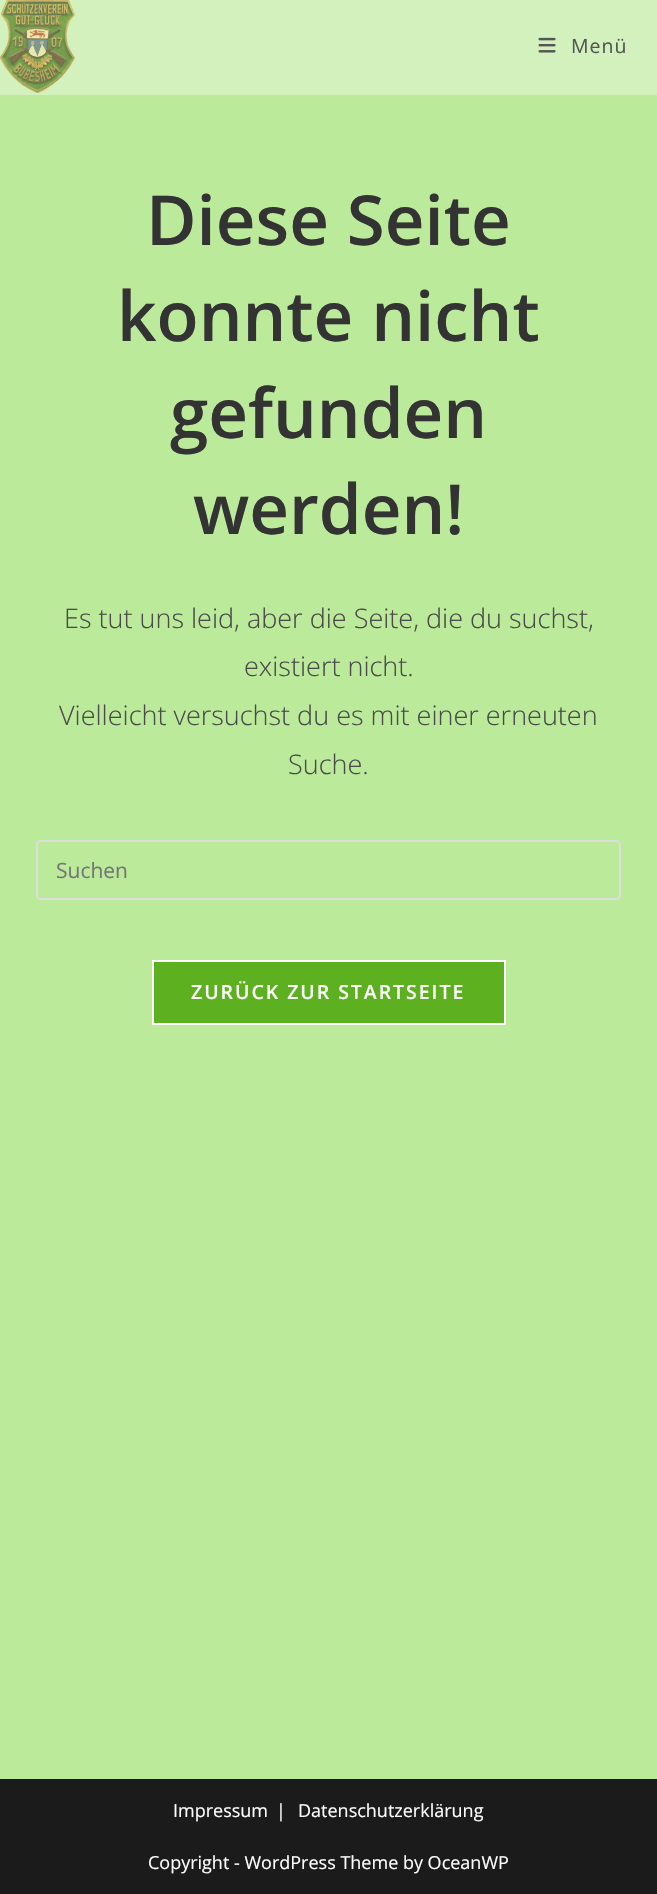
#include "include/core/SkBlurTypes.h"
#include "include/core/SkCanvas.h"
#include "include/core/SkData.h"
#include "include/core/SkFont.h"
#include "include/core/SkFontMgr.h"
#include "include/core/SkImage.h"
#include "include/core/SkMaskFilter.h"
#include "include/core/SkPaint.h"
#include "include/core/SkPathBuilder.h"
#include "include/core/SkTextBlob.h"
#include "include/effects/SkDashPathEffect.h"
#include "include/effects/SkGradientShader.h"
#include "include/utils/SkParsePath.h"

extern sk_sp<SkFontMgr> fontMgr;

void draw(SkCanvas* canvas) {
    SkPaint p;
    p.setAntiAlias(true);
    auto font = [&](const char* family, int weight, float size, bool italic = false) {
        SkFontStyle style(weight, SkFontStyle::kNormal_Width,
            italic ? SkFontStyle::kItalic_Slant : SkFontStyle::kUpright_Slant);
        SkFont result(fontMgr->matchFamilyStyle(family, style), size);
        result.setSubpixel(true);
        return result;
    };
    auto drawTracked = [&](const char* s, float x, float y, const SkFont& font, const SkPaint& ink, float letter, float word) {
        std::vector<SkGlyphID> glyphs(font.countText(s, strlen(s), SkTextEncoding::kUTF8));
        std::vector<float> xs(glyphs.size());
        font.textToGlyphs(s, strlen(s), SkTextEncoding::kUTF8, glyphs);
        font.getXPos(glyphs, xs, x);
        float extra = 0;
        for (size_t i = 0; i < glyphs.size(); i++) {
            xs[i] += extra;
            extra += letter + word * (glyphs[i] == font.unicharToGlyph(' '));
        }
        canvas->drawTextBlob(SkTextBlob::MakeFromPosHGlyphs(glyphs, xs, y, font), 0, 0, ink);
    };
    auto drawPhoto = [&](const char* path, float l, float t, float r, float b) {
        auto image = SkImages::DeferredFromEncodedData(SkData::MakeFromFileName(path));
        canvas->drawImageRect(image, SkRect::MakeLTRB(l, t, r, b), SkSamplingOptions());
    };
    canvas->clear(0xFFBCEA9B);
    p.setColor(0xFFD2F1BC);
    canvas->drawRect(SkRect::MakeLTRB(0, 0, 657, 95), p);
    drawPhoto("media/1.png", 0, 0, 75, 93);
    drawPhoto("media/2.png", 538, 37, 556, 53);
    auto font1 = font("Open Sans", 400, 19.5f);
    p.setColor(0xFF555555);
    drawTracked("Menü", 571, 53, font1, p, 1, 0);
    auto font2 = font("Open Sans", 600, 69);
    p.setColor(0xFF333333);
    {
        const struct { const char* s; float x, y; } items[] = {
            {"Diese Seite", 146, 245},
            {"konnte nicht", 117, 341},
            {"gefunden", 170, 438},
            {"werden!", 193, 534},
        };
        for (auto [s, x, y] : items) {
            canvas->drawString(s, x, y, font2, p);
        }
    }
    auto font3 = font("Open Sans", 300, 27);
    p.setColor(0xFF4A4A4A);
    {
        const struct { const char* s; float x, y; } items[] = {
            {"Es tut uns leid, aber die Seite, die du suchst,", 64, 628},
            {"existiert nicht.", 244, 676},
            {"Vielleicht versuchst du es mit einer erneuten", 59, 725},
            {"Suche.", 288, 774},
        };
        for (auto [s, x, y] : items) {
            canvas->drawString(s, x, y, font3, p);
        }
    }
    p.setStyle(SkPaint::kStroke_Style);
    p.setStrokeWidth(2);
    p.setColor(0xFFDDDDDD);
    canvas->drawRoundRect(SkRect::MakeLTRB(37, 841, 620, 899), 4, 4, p);
    auto font4 = font("Open Sans", 400, 21);
    p.setStyle(SkPaint::kFill_Style);
    p.setColor(0xFF757575);
    canvas->drawString("Suchen", 56, 878, font4, p);
    p.setColor(0xFF5DB121);
    canvas->drawRect(SkRect::MakeLTRB(153, 961, 505, 1024), p);
    p.setStyle(SkPaint::kStroke_Style);
    p.setColor(0xFFFFFFFF);
    canvas->drawRect(SkRect::MakeLTRB(153, 961, 505, 1024), p);
    auto font5 = font("Open Sans", 600, 19.5f);
    p.setStyle(SkPaint::kFill_Style);
    drawTracked("ZURÜCK ZUR STARTSEITE", 191, 999, font5, p, 1.95f, 0);
    p.setColor(0xFF1B1B1B);
    canvas->drawRect(SkRect::MakeLTRB(0, 1779, 657, 1894), p);
    auto font6 = font("Open Sans", 400, 18);
    p.setColor(0xFFFFFFFF);
    {
        const struct { const char* s; float x, y; } items[] = {
            {"Impressum", 173, 1817},
            {"|", 276, 1817},
            {"Datenschutzerklärung", 298, 1817},
            {"Copyright - WordPress Theme by OceanWP", 148, 1869},
        };
        for (auto [s, x, y] : items) {
            canvas->drawString(s, x, y, font6, p);
        }
    }
}
